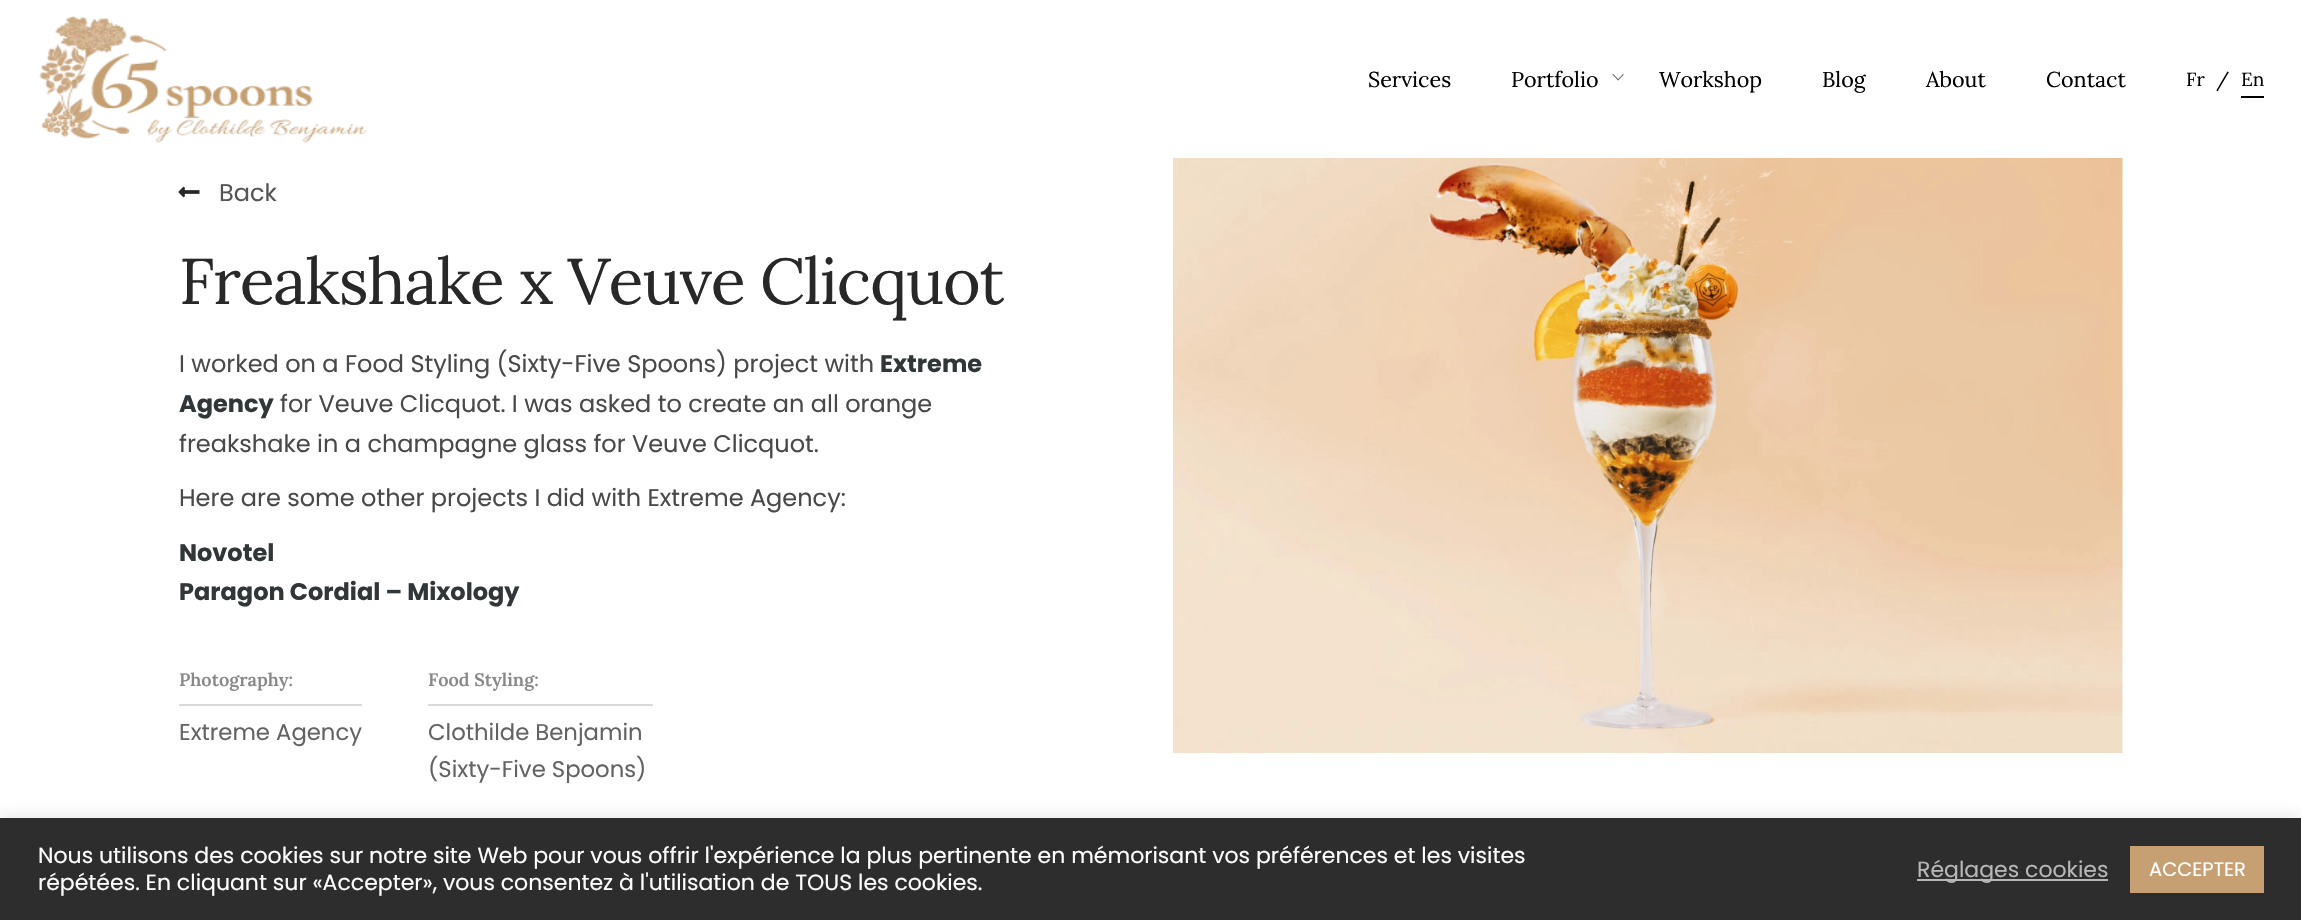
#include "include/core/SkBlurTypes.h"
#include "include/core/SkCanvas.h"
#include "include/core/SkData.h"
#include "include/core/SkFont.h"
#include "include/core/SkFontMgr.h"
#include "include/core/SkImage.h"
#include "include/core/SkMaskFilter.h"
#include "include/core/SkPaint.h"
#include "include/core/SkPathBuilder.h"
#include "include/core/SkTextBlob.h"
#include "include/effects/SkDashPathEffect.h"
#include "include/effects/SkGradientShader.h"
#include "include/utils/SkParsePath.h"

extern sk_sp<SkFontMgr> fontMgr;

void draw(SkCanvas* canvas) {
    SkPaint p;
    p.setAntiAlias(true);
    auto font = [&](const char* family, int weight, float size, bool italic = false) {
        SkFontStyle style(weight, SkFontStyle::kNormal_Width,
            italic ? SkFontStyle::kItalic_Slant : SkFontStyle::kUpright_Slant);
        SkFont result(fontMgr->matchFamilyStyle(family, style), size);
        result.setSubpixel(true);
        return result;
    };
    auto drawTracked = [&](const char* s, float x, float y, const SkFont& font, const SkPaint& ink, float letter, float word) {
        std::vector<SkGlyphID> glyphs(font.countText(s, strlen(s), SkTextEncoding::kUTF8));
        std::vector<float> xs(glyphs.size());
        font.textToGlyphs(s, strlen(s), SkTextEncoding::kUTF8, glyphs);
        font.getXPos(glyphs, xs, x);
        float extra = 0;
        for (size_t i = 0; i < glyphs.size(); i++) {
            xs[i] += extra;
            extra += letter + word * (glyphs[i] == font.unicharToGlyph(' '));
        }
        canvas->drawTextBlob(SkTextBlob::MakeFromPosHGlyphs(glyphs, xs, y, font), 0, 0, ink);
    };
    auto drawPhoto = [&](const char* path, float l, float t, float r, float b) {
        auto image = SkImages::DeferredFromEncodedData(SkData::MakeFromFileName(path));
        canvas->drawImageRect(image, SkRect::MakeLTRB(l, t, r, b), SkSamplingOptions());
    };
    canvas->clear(0xFFFFFFFF);
    drawPhoto("media/1.png", 38, 15, 368, 143);
    auto font1 = font("Lora", 400, 21.5f);
    p.setColor(0xFF000000);
    canvas->drawString("Services", 1368, 87, font1, p);
    canvas->drawString("Portfolio", 1511, 87, font1, p);
    drawPhoto("media/2.png", 1612, 74, 1624, 81);
    {
        const struct { const char* s; float x, y; } items[] = {
            {"Workshop", 1659, 87},
            {"Blog", 1822, 87},
            {"About", 1926, 87},
            {"Contact", 2046, 87},
        };
        for (auto [s, x, y] : items) {
            canvas->drawString(s, x, y, font1, p);
        }
    }
    auto font2 = font("Lora", 400, 19);
    {
        const struct { const char* s; float x, y; } items[] = {
            {"Fr", 2186, 86},
            {"/", 2216, 86},
            {"En", 2241, 86},
        };
        for (auto [s, x, y] : items) {
            canvas->drawString(s, x, y, font2, p);
        }
    }
    canvas->drawRect(SkRect::MakeLTRB(2241, 96, 2264, 98), p);
    drawPhoto("media/3.png", 178, 186, 200, 198);
    auto font3 = font("Poppins", 400, 24);
    p.setColor(0xFF555555);
    canvas->drawString("Back", 219, 201, font3, p);
    auto font4 = font("Lora", 400, 64.5f);
    p.setColor(0xFF282828);
    drawTracked("Freakshake x Veuve Clicquot", 179, 304, font4, p, -1.3f, 0);
    p.setColor(0xFF494949);
    canvas->drawString("I worked on a Food Styling (Sixty-Five Spoons) project with", 179, 372, font3, p);
    auto font5 = font("Poppins", 700, 24);
    p.setColor(0xFF313638);
    canvas->drawString("Extreme", 880, 372, font5, p);
    canvas->drawString("Agency", 179, 412, font5, p);
    p.setColor(0xFF494949);
    {
        const struct { const char* s; float x, y; } items[] = {
            {"for Veuve Clicquot. I was asked to create an all orange", 280, 412},
            {"freakshake in a champagne glass for Veuve Clicquot.", 179, 452},
            {"Here are some other projects I did with Extreme Agency:", 179, 506},
        };
        for (auto [s, x, y] : items) {
            canvas->drawString(s, x, y, font3, p);
        }
    }
    p.setColor(0xFF313638);
    canvas->drawString("Novotel", 179, 561, font5, p);
    canvas->drawString("Paragon Cordial – Mixology", 179, 600, font5, p);
    p.setColor(0xFFD9D9D9);
    canvas->drawRect(SkRect::MakeLTRB(179, 704, 362, 706), p);
    auto font6 = font("Lora", 600, 18);
    p.setColor(0xFF888888);
    canvas->drawString("Photography:", 179, 686, font6, p);
    auto font7 = font("Poppins", 400, 22.75f);
    p.setColor(0xFF636363);
    canvas->drawString("Extreme Agency", 179, 740, font7, p);
    p.setColor(0xFFD9D9D9);
    canvas->drawRect(SkRect::MakeLTRB(428, 704, 653, 706), p);
    p.setColor(0xFF888888);
    canvas->drawString("Food Styling:", 428, 686, font6, p);
    p.setColor(0xFF636363);
    canvas->drawString("Clothilde Benjamin", 428, 740, font7, p);
    canvas->drawString("(Sixty-Five Spoons)", 428, 777, font7, p);
    drawPhoto("media/4.png", 1173, 158, 2123, 753);
    p.setColor(0x4DACABAB);
    p.setMaskFilter(SkMaskFilter::MakeBlur(kNormal_SkBlurStyle, 7.5f));
    canvas->drawRect(SkRect::MakeLTRB(0, 816, 2301, 920), p);
    p.setMaskFilter(nullptr);
    p.setColor(0xFF2D2D2D);
    canvas->drawRect(SkRect::MakeLTRB(0, 818, 2301, 920), p);
    auto font8 = font("Poppins", 400, 22);
    p.setColor(0xFFFFFFFF);
    canvas->drawString("Nous utilisons des cookies sur notre site Web pour vous offrir l'expérience la plus pertinente en mémorisant vos préférences et les visites", 38, 863, font8, p);
    canvas->drawString("répétées. En cliquant sur «Accepter», vous consentez à l'utilisation de TOUS les cookies.", 38, 890, font8, p);
    p.setColor(0xFFB7B7B7);
    canvas->drawRect(SkRect::MakeLTRB(1917, 879, 2108, 881), p);
    canvas->drawString("Réglages cookies", 1917, 877, font8, p);
    p.setColor(0xFFC69F73);
    canvas->drawRect(SkRect::MakeLTRB(2130, 846, 2264, 893), p);
    auto font9 = font("Poppins", 400, 19.5f);
    p.setColor(0xFFFFFFFF);
    canvas->drawString("ACCEPTER", 2149, 876, font9, p);
}
